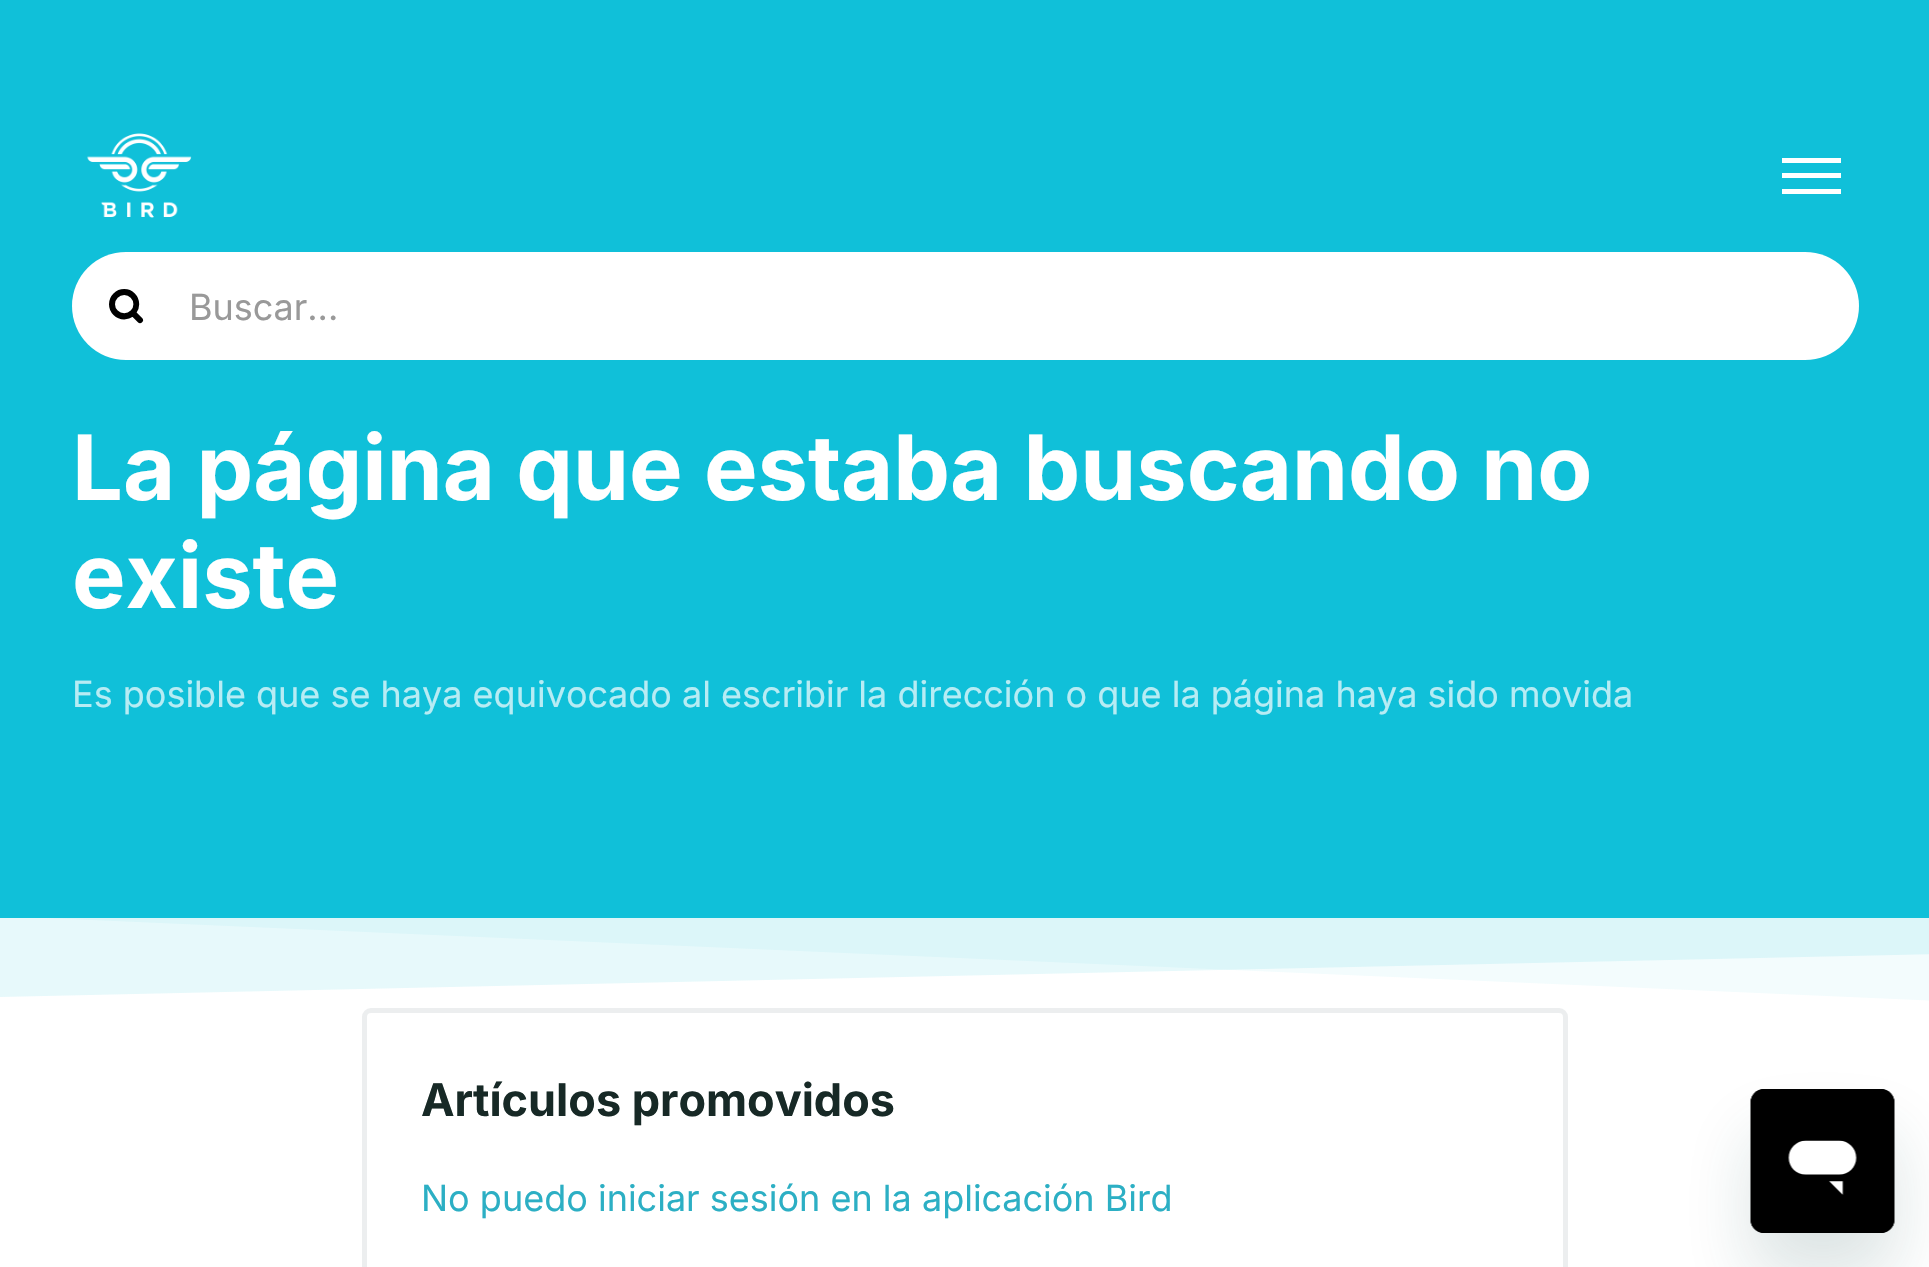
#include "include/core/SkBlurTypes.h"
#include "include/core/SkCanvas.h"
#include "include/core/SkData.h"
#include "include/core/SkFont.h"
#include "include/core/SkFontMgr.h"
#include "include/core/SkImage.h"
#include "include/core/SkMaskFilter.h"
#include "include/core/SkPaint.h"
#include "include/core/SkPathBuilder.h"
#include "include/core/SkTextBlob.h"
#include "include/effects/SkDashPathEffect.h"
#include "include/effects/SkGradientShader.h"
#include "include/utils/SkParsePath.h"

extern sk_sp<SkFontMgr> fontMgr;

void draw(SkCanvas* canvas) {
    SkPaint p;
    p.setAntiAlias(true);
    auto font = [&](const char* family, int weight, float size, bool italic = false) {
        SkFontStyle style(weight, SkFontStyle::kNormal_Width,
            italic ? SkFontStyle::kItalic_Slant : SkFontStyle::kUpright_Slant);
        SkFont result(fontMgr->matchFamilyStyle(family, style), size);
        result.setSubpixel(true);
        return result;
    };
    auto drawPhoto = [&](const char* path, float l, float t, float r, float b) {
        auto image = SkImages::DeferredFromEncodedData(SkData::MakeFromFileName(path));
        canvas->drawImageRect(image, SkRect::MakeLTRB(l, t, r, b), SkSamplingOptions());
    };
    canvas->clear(0xFFFFFFFF);
    p.setColor(0xFF10C0D9);
    canvas->drawRect(SkRect::MakeLTRB(0, 0, 1929, 918), p);
    drawPhoto("media/1.png", 87, 133, 192, 218);
    {
        const struct { float l, t, r, b; SkColor color; } items[] = {
            {1782, 173, 1841, 178, 0xFFFFFFFF},
            {1782, 158, 1841, 163, 0xFFFFFFFF},
            {1782, 189, 1841, 194, 0xFFFFFFFF},
        };
        for (auto [l, t, r, b, color] : items) {
            p.setColor(color);
            canvas->drawRect(SkRect::MakeLTRB(l, t, r, b), p);
        }
    }
    canvas->drawRoundRect(SkRect::MakeLTRB(72, 252, 1859, 360), 54, 54, p);
    drawPhoto("media/2.png", 109, 289, 144, 324);
    auto font1 = font("Inter", 400, 36);
    p.setColor(0xFF999999);
    canvas->drawString("Buscar...", 189, 320, font1, p);
    auto font2 = font("Inter", 700, 90);
    p.setColor(0xFFFFFFFF);
    canvas->drawString("La página que estaba buscando no", 72, 500, font2, p);
    canvas->drawString("existe", 72, 608, font2, p);
    p.setColor(0xFFB7ECF4);
    canvas->drawString("Es posible que se haya equivocado al escribir la dirección o que la página haya sido movida", 72, 707, font1, p);
    p.setColor(0x0D10C0D9);
    canvas->drawPath(SkPathBuilder().moveTo(0, 916).lineTo(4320, 916).lineTo(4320, 1105).close().detach(), p);
    p.setColor(0x1A10C0D9);
    canvas->drawPath(SkPathBuilder().moveTo(0, 916).lineTo(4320, 916).lineTo(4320, 901).lineTo(0, 997).close().detach(), p);
    p.setStyle(SkPaint::kStroke_Style);
    p.setStrokeWidth(5);
    p.setColor(0xFFECEEEF);
    canvas->drawRoundRect(SkRect::MakeLTRB(364.5f, 1010.5f, 1565.5f, 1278.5f), 6.5f, 6.5f, p);
    auto font3 = font("Inter", 700, 45);
    p.setStyle(SkPaint::kFill_Style);
    p.setColor(0xFF172926);
    canvas->drawString("Artículos promovidos", 421, 1116, font3, p);
    p.setColor(0xFF2CAFC4);
    canvas->drawString("No puedo iniciar sesión en la aplicación Bird", 421, 1211, font1, p);
    p.setColor(0x2617494D);
    p.setMaskFilter(SkMaskFilter::MakeBlur(kNormal_SkBlurStyle, 34));
    canvas->drawRoundRect(SkRect::MakeLTRB(1751, 1134, 1895, 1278), 14, 14, p);
    p.setMaskFilter(nullptr);
    drawPhoto("media/3.png", 1750, 1089, 1895, 1233);
}
